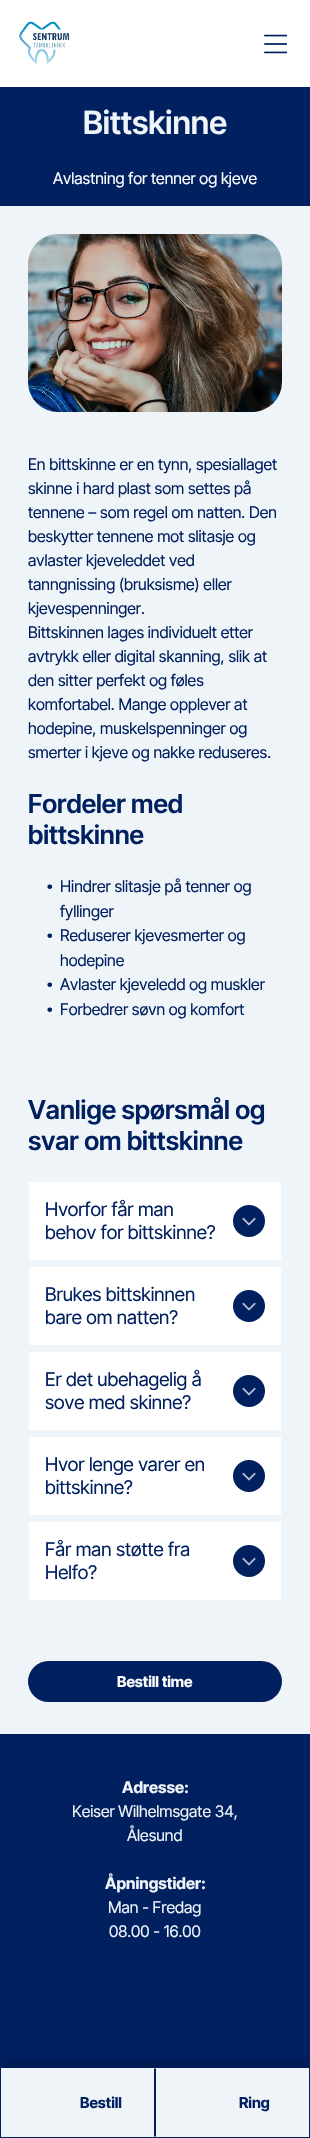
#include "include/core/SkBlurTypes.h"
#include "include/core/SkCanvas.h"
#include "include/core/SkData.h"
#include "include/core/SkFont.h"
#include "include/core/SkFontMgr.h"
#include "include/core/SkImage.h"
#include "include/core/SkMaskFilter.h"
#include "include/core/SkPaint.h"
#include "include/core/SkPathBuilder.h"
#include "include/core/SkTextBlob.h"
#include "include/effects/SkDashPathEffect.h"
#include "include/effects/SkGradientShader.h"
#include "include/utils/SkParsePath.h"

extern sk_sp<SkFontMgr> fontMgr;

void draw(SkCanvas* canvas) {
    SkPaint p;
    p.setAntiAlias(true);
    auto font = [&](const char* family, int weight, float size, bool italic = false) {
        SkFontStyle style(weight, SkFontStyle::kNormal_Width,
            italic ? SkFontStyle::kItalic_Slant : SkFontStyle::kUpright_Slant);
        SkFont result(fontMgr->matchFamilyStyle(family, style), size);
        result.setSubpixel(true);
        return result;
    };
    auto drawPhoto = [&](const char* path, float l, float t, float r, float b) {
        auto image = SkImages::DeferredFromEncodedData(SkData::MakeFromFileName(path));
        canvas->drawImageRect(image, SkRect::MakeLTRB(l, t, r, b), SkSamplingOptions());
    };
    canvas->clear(0xFFFFFFFF);
    drawPhoto("media/1.png", 19, 21, 70, 64);
    drawPhoto("media/2.png", 264, 34, 287, 54);
    p.setColor(0xFF012060);
    canvas->drawRect(SkRect::MakeLTRB(0, 87, 310, 206), p);
    auto font1 = font("Inter Tight", 600, 32);
    p.setColor(0xFFEFF4F8);
    canvas->drawString("Bittskinne", 83, 134, font1, p);
    auto font2 = font("Inter Tight", 400, 16);
    p.setColor(0xFFFFFFFF);
    canvas->drawString("Avlastning for tenner og kjeve", 53, 184, font2, p);
    p.setColor(0xFFEFF4F8);
    canvas->drawRect(SkRect::MakeLTRB(0, 206, 310, 1734), p);
    drawPhoto("media/3.png", 28, 234, 282, 412);
    p.setColor(0xFF012060);
    {
        const struct { const char* s; float x, y; } items[] = {
            {"En bittskinne er en tynn, spesiallaget", 28, 470},
            {"skinne i hard plast som settes på", 28, 494},
            {"tennene – som regel om natten. Den", 28, 518},
            {"beskytter tennene mot slitasje og", 28, 542},
            {"avlaster kjeveleddet ved", 28, 566},
            {"tanngnissing (bruksisme) eller", 28, 590},
            {"kjevespenninger.", 28, 614},
            {"Bittskinnen lages individuelt etter", 28, 638},
            {"avtrykk eller digital skanning, slik at", 28, 662},
            {"den sitter perfekt og føles", 28, 686},
            {"komfortabel. Mange opplever at", 28, 710},
            {"hodepine, muskelspenninger og", 28, 734},
            {"smerter i kjeve og nakke reduseres.", 28, 758},
        };
        for (auto [s, x, y] : items) {
            canvas->drawString(s, x, y, font2, p);
        }
    }
    auto font3 = font("Inter Tight", 600, 26);
    canvas->drawString("Fordeler med", 28, 813, font3, p);
    canvas->drawString("bittskinne", 28, 844, font3, p);
    auto font4 = font("Liberation Sans", 700, 16);
    canvas->drawString("•", 47, 892, font4, p);
    canvas->drawString("Hindrer slitasje på tenner og", 60, 892, font2, p);
    canvas->drawString("fyllinger", 60, 917, font2, p);
    canvas->drawString("•", 47, 941, font4, p);
    canvas->drawString("Reduserer kjevesmerter og", 60, 941, font2, p);
    canvas->drawString("hodepine", 60, 966, font2, p);
    canvas->drawString("•", 47, 990, font4, p);
    canvas->drawString("Avlaster kjeveledd og muskler", 60, 990, font2, p);
    canvas->drawString("•", 47, 1015, font4, p);
    canvas->drawString("Forbedrer søvn og komfort", 60, 1015, font2, p);
    canvas->drawString("Vanlige spørsmål og", 28, 1119, font3, p);
    canvas->drawString("svar om bittskinne", 28, 1150, font3, p);
    p.setColor(0xFFFFFFFF);
    canvas->drawRect(SkRect::MakeLTRB(29, 1182, 281, 1260), p);
    auto font5 = font("Inter Tight", 400, 19);
    p.setColor(0xFF012060);
    canvas->drawString("Hvorfor får man", 45, 1216, font5, p);
    canvas->drawString("behov for bittskinne?", 45, 1239, font5, p);
    canvas->drawCircle(249, 1221, 16, p);
    drawPhoto("media/4.png", 242, 1217, 256, 1226);
    p.setColor(0xFFFFFFFF);
    canvas->drawRect(SkRect::MakeLTRB(29, 1267, 281, 1345), p);
    p.setColor(0xFF012060);
    canvas->drawString("Brukes bittskinnen", 45, 1301, font5, p);
    canvas->drawString("bare om natten?", 45, 1324, font5, p);
    canvas->drawCircle(249, 1306, 16, p);
    drawPhoto("media/4.png", 242, 1302, 256, 1311);
    p.setColor(0xFFFFFFFF);
    canvas->drawRect(SkRect::MakeLTRB(29, 1352, 281, 1430), p);
    p.setColor(0xFF012060);
    canvas->drawString("Er det ubehagelig å", 45, 1386, font5, p);
    canvas->drawString("sove med skinne?", 45, 1409, font5, p);
    canvas->drawCircle(249, 1391, 16, p);
    drawPhoto("media/4.png", 242, 1387, 256, 1396);
    p.setColor(0xFFFFFFFF);
    canvas->drawRect(SkRect::MakeLTRB(29, 1437, 281, 1515), p);
    p.setColor(0xFF012060);
    canvas->drawString("Hvor lenge varer en", 45, 1471, font5, p);
    canvas->drawString("bittskinne?", 45, 1494, font5, p);
    canvas->drawCircle(249, 1476, 16, p);
    drawPhoto("media/4.png", 242, 1472, 256, 1481);
    p.setColor(0xFFFFFFFF);
    canvas->drawRect(SkRect::MakeLTRB(29, 1522, 281, 1600), p);
    p.setColor(0xFF012060);
    canvas->drawString("Får man støtte fra", 45, 1556, font5, p);
    canvas->drawString("Helfo?", 45, 1579, font5, p);
    canvas->drawCircle(249, 1561, 16, p);
    drawPhoto("media/4.png", 242, 1557, 256, 1566);
    canvas->drawRoundRect(SkRect::MakeLTRB(28, 1661, 282, 1702), 20.5f, 20.5f, p);
    auto font6 = font("Inter Tight", 700, 15);
    p.setColor(0xFFFFFFFF);
    canvas->drawString("Bestill time", 117, 1687, font6, p);
    p.setColor(0xFF012060);
    canvas->drawRect(SkRect::MakeLTRB(0, 1734, 310, 2067), p);
    auto font7 = font("Inter Tight", 700, 16);
    p.setColor(0xFFEFF4F8);
    canvas->drawString("Adresse:", 122, 1793, font7, p);
    canvas->drawString("Keiser Wilhelmsgate 34,", 72, 1817, font2, p);
    canvas->drawString("Ålesund", 127, 1841, font2, p);
    canvas->drawString("Åpningstider:", 105, 1889, font7, p);
    canvas->drawString("Man - Fredag", 108, 1913, font2, p);
    canvas->drawString("08.00 - 16.00", 109, 1937, font2, p);
    p.setColor(0x40000000);
    p.setMaskFilter(SkMaskFilter::MakeBlur(kNormal_SkBlurStyle, 5.5f));
    canvas->drawRect(SkRect::MakeLTRB(0, 2064, 310, 2135), p);
    p.setMaskFilter(nullptr);
    p.setColor(0xFFEFF4F8);
    canvas->drawRect(SkRect::MakeLTRB(0.5f, 2067.5f, 309.5f, 2137.5f), p);
    p.setStyle(SkPaint::kStroke_Style);
    p.setStrokeWidth(1);
    p.setColor(0xFF012060);
    canvas->drawRect(SkRect::MakeLTRB(0.5f, 2067.5f, 309.5f, 2137.5f), p);
    p.setStyle(SkPaint::kFill_Style);
    canvas->drawPath(SkPathBuilder().moveTo(155, 2068).lineTo(155, 2137).lineTo(154, 2136).lineTo(154, 2069).close().detach(), p);
    canvas->drawString("Bestill", 80, 2108, font6, p);
    canvas->drawPath(SkPathBuilder().moveTo(155, 2137).lineTo(155, 2068).lineTo(156, 2069).lineTo(156, 2136).close().detach(), p);
    canvas->drawString("Ring", 239, 2108, font6, p);
}
